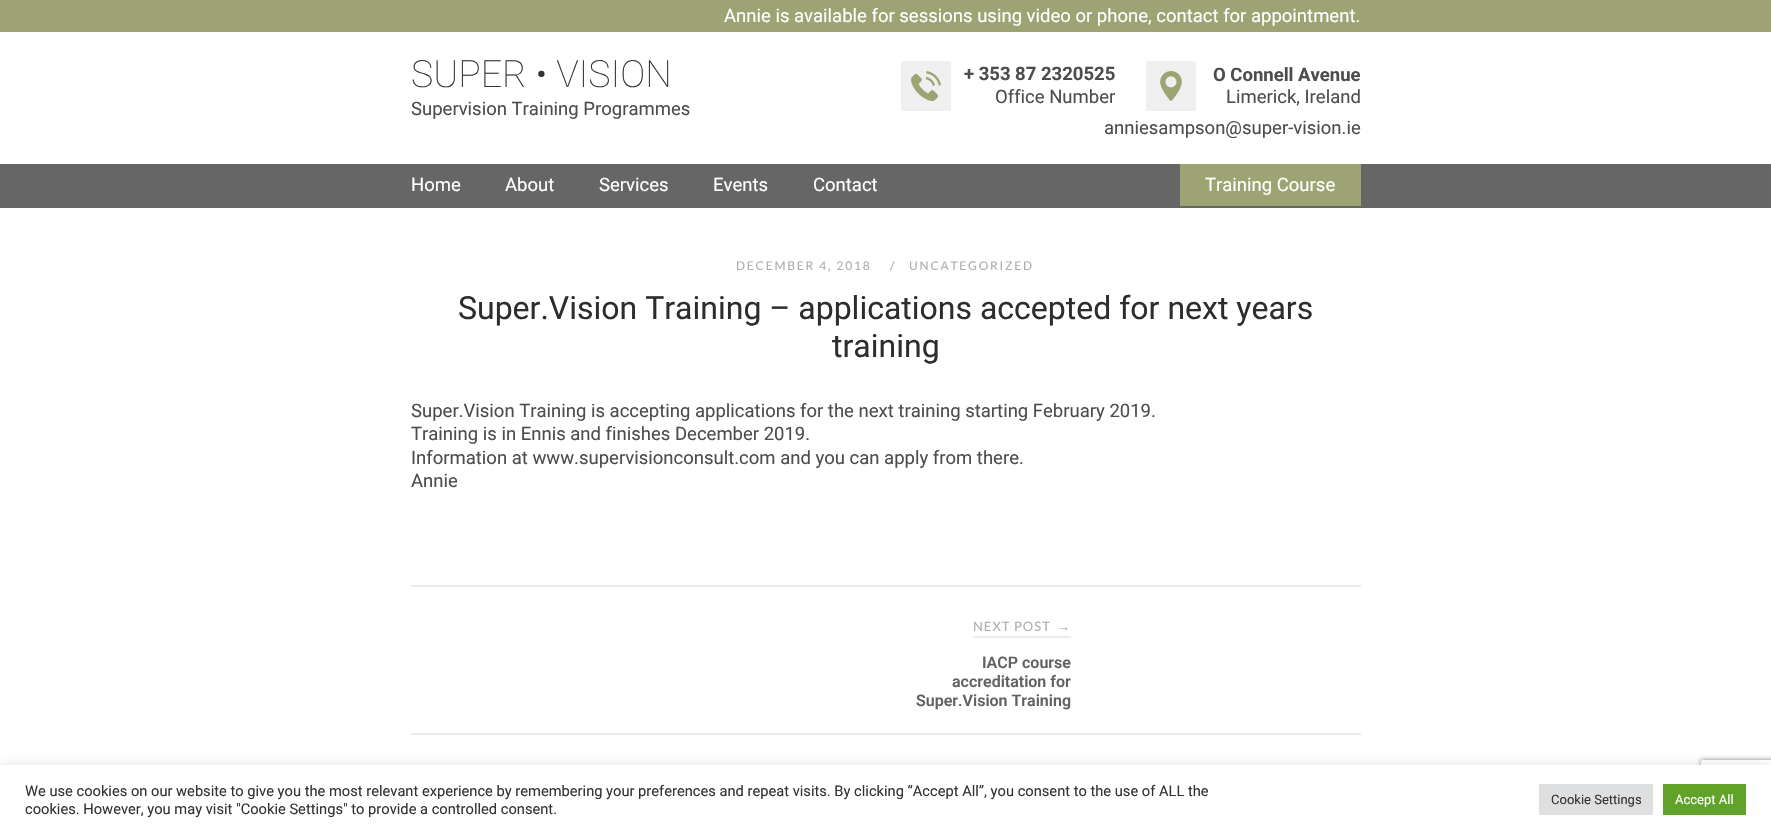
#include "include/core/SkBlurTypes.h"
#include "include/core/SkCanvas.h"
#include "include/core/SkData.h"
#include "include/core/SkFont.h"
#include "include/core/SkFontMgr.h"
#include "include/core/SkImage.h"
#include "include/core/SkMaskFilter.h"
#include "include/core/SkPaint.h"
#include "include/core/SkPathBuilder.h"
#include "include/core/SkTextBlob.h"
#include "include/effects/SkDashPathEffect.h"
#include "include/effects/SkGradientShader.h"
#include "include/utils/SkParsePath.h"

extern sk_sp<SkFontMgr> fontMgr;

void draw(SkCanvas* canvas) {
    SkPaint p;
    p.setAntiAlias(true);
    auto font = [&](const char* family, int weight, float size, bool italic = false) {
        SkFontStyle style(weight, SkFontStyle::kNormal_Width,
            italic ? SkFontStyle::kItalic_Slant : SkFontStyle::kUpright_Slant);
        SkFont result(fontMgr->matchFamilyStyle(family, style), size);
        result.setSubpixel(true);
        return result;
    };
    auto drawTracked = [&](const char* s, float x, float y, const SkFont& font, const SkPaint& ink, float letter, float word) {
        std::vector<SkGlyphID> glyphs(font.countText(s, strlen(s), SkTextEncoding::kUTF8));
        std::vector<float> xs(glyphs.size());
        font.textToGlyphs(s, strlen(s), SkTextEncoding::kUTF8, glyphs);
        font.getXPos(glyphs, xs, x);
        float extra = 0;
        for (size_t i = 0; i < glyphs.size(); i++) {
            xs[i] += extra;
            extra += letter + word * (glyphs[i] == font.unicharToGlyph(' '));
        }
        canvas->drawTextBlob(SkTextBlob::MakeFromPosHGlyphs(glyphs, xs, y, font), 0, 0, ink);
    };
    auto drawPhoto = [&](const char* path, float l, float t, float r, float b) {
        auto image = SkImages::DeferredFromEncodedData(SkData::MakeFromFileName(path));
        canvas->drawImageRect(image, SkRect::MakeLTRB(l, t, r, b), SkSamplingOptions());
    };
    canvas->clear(0xFFFFFFFF);
    p.setColor(0xFF9EA374);
    canvas->drawRect(SkRect::MakeLTRB(0, 0, 1771, 32), p);
    auto font1 = font("Roboto", 400, 18.5f);
    p.setColor(0xFFFFFFFF);
    canvas->drawString("Annie is available for sessions using video or phone, contact for appointment.", 724, 22, font1, p);
    auto font2 = font("Roboto", 100, 37.5f);
    p.setColor(0xFF333333);
    canvas->drawString("SUPER • VISION", 411, 87, font2, p);
    p.setColor(0xFF4D4D4D);
    canvas->drawString("Supervision Training Programmes", 411, 115, font1, p);
    p.setColor(0xFFEFEFEF);
    canvas->drawRoundRect(SkRect::MakeLTRB(901, 61, 951, 111), 2.5f, 2.5f, p);
    drawPhoto("media/1.png", 911, 71, 941, 101);
    auto font3 = font("Roboto", 700, 18.5f);
    p.setColor(0xFF4D4D4D);
    canvas->drawString("+ 353 87 2320525", 964, 80, font3, p);
    canvas->drawString("Office Number", 995, 103, font1, p);
    p.setColor(0xFFEFEFEF);
    canvas->drawRoundRect(SkRect::MakeLTRB(1146, 61, 1196, 111), 2.5f, 2.5f, p);
    drawPhoto("media/2.png", 1160, 71, 1182, 101);
    p.setColor(0xFF4D4D4D);
    canvas->drawString("O Connell Avenue", 1213, 81, font3, p);
    canvas->drawString("Limerick, Ireland", 1226, 103, font1, p);
    canvas->drawString("anniesampson@super-vision.ie", 1104, 134, font1, p);
    p.setColor(0xFF666666);
    canvas->drawRect(SkRect::MakeLTRB(0, 164, 1771, 208), p);
    p.setColor(0xFFFFFFFF);
    {
        const struct { const char* s; float x, y; } items[] = {
            {"Home", 411, 191},
            {"About", 505, 191},
            {"Services", 599, 191},
            {"Events", 713, 191},
            {"Contact", 813, 191},
        };
        for (auto [s, x, y] : items) {
            canvas->drawString(s, x, y, font1, p);
        }
    }
    p.setColor(0xFF9EA374);
    canvas->drawRect(SkRect::MakeLTRB(1180, 164, 1361, 206), p);
    p.setColor(0xFFFFFFFF);
    canvas->drawString("Training Course", 1205, 191, font1, p);
    auto font4 = font("Lato", 400, 12);
    p.setColor(0xFFADADAD);
    {
        const struct { const char* s; float x, y; } items[] = {
            {"DECEMBER 4, 2018", 736, 270},
            {"/", 890, 270},
            {"UNCATEGORIZED", 909, 270},
        };
        for (auto [s, x, y] : items) {
            drawTracked(s, x, y, font4, p, 1.8f, 0);
        }
    }
    auto font5 = font("Roboto", 400, 32);
    p.setColor(0xFF2D2D2D);
    canvas->drawString("Super.Vision Training – applications accepted for next years", 458, 319, font5, p);
    canvas->drawString("training", 832, 357, font5, p);
    p.setColor(0xFF4D4D4D);
    {
        const struct { const char* s; float x, y; } items[] = {
            {"Super.Vision Training is accepting applications for the next training starting February 2019.", 411, 417},
            {"Training is in Ennis and finishes December 2019.", 411, 440},
            {"Information at www.supervisionconsult.com and you can apply from there.", 411, 464},
            {"Annie", 411, 487},
        };
        for (auto [s, x, y] : items) {
            canvas->drawString(s, x, y, font1, p);
        }
    }
    {
        const struct { float l, t, r, b; SkColor color; } items[] = {
            {411, 585, 1361, 587, 0xFFEBEBEB},
            {411, 733, 1361, 735, 0xFFEBEBEB},
            {973, 636, 1071, 638, 0xFFEBEBEB},
        };
        for (auto [l, t, r, b, color] : items) {
            p.setColor(color);
            canvas->drawRect(SkRect::MakeLTRB(l, t, r, b), p);
        }
    }
    auto font6 = font("Lato", 400, 13);
    p.setColor(0xFFADADAD);
    drawTracked("NEXT POST", 973, 631, font6, p, 1, 0);
    auto font7 = font("Liberation Sans", 400, 13);
    drawTracked("→", 1057, 631, font7, p, 1, 0);
    auto font8 = font("Roboto", 600, 16);
    p.setColor(0xFF626262);
    {
        const struct { const char* s; float x, y; } items[] = {
            {"IACP course", 982, 668},
            {"accreditation for", 952, 687},
            {"Super.Vision Training", 916, 706},
        };
        for (auto [s, x, y] : items) {
            canvas->drawString(s, x, y, font8, p);
        }
    }
    canvas->save();
    canvas->clipPath(SkPathBuilder(SkPathFillType::kEvenOdd).moveTo(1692, 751).lineTo(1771, 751).lineTo(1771, 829).lineTo(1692, 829).close().moveTo(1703, 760).lineTo(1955, 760).cubicTo(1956, 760, 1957, 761, 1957, 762).lineTo(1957, 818).cubicTo(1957, 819, 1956, 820, 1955, 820).lineTo(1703, 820).cubicTo(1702, 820, 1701, 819, 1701, 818).lineTo(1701, 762).cubicTo(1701, 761, 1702, 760, 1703, 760).close().detach(), true);
    p.setColor(0xFF808080);
    p.setMaskFilter(SkMaskFilter::MakeBlur(kNormal_SkBlurStyle, 2.5f));
    canvas->drawRoundRect(SkRect::MakeLTRB(1701, 760, 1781, 820), 2, 2, p);
    p.setMaskFilter(nullptr);
    canvas->restore();
    p.setColor(0x4DACABAB);
    p.setMaskFilter(SkMaskFilter::MakeBlur(kNormal_SkBlurStyle, 5));
    canvas->drawRect(SkRect::MakeLTRB(0, 764, 1771, 833), p);
    p.setMaskFilter(nullptr);
    p.setColor(0xFFFFFFFF);
    canvas->drawRect(SkRect::MakeLTRB(0, 765, 1771, 834), p);
    auto font9 = font("Roboto", 400, 14.67f);
    p.setColor(0xFF333333);
    canvas->drawString("We use cookies on our website to give you the most relevant experience by remembering your preferences and repeat visits. By clicking “Accept All”, you consent to the use of ALL the", 25, 796, font9, p);
    canvas->drawString("cookies. However, you may visit \"Cookie Settings\" to provide a controlled consent.", 25, 814, font9, p);
    p.setColor(0xFFDEDFE0);
    canvas->drawRect(SkRect::MakeLTRB(1539, 784, 1653, 815), p);
    auto font10 = font("Roboto", 400, 13);
    p.setColor(0xFF333333);
    canvas->drawString("Cookie Settings", 1551, 804, font10, p);
    p.setColor(0xFF61A229);
    canvas->drawRect(SkRect::MakeLTRB(1663, 784, 1746, 815), p);
    p.setColor(0xFFFFFFFF);
    canvas->drawString("Accept All", 1675, 804, font10, p);
}
